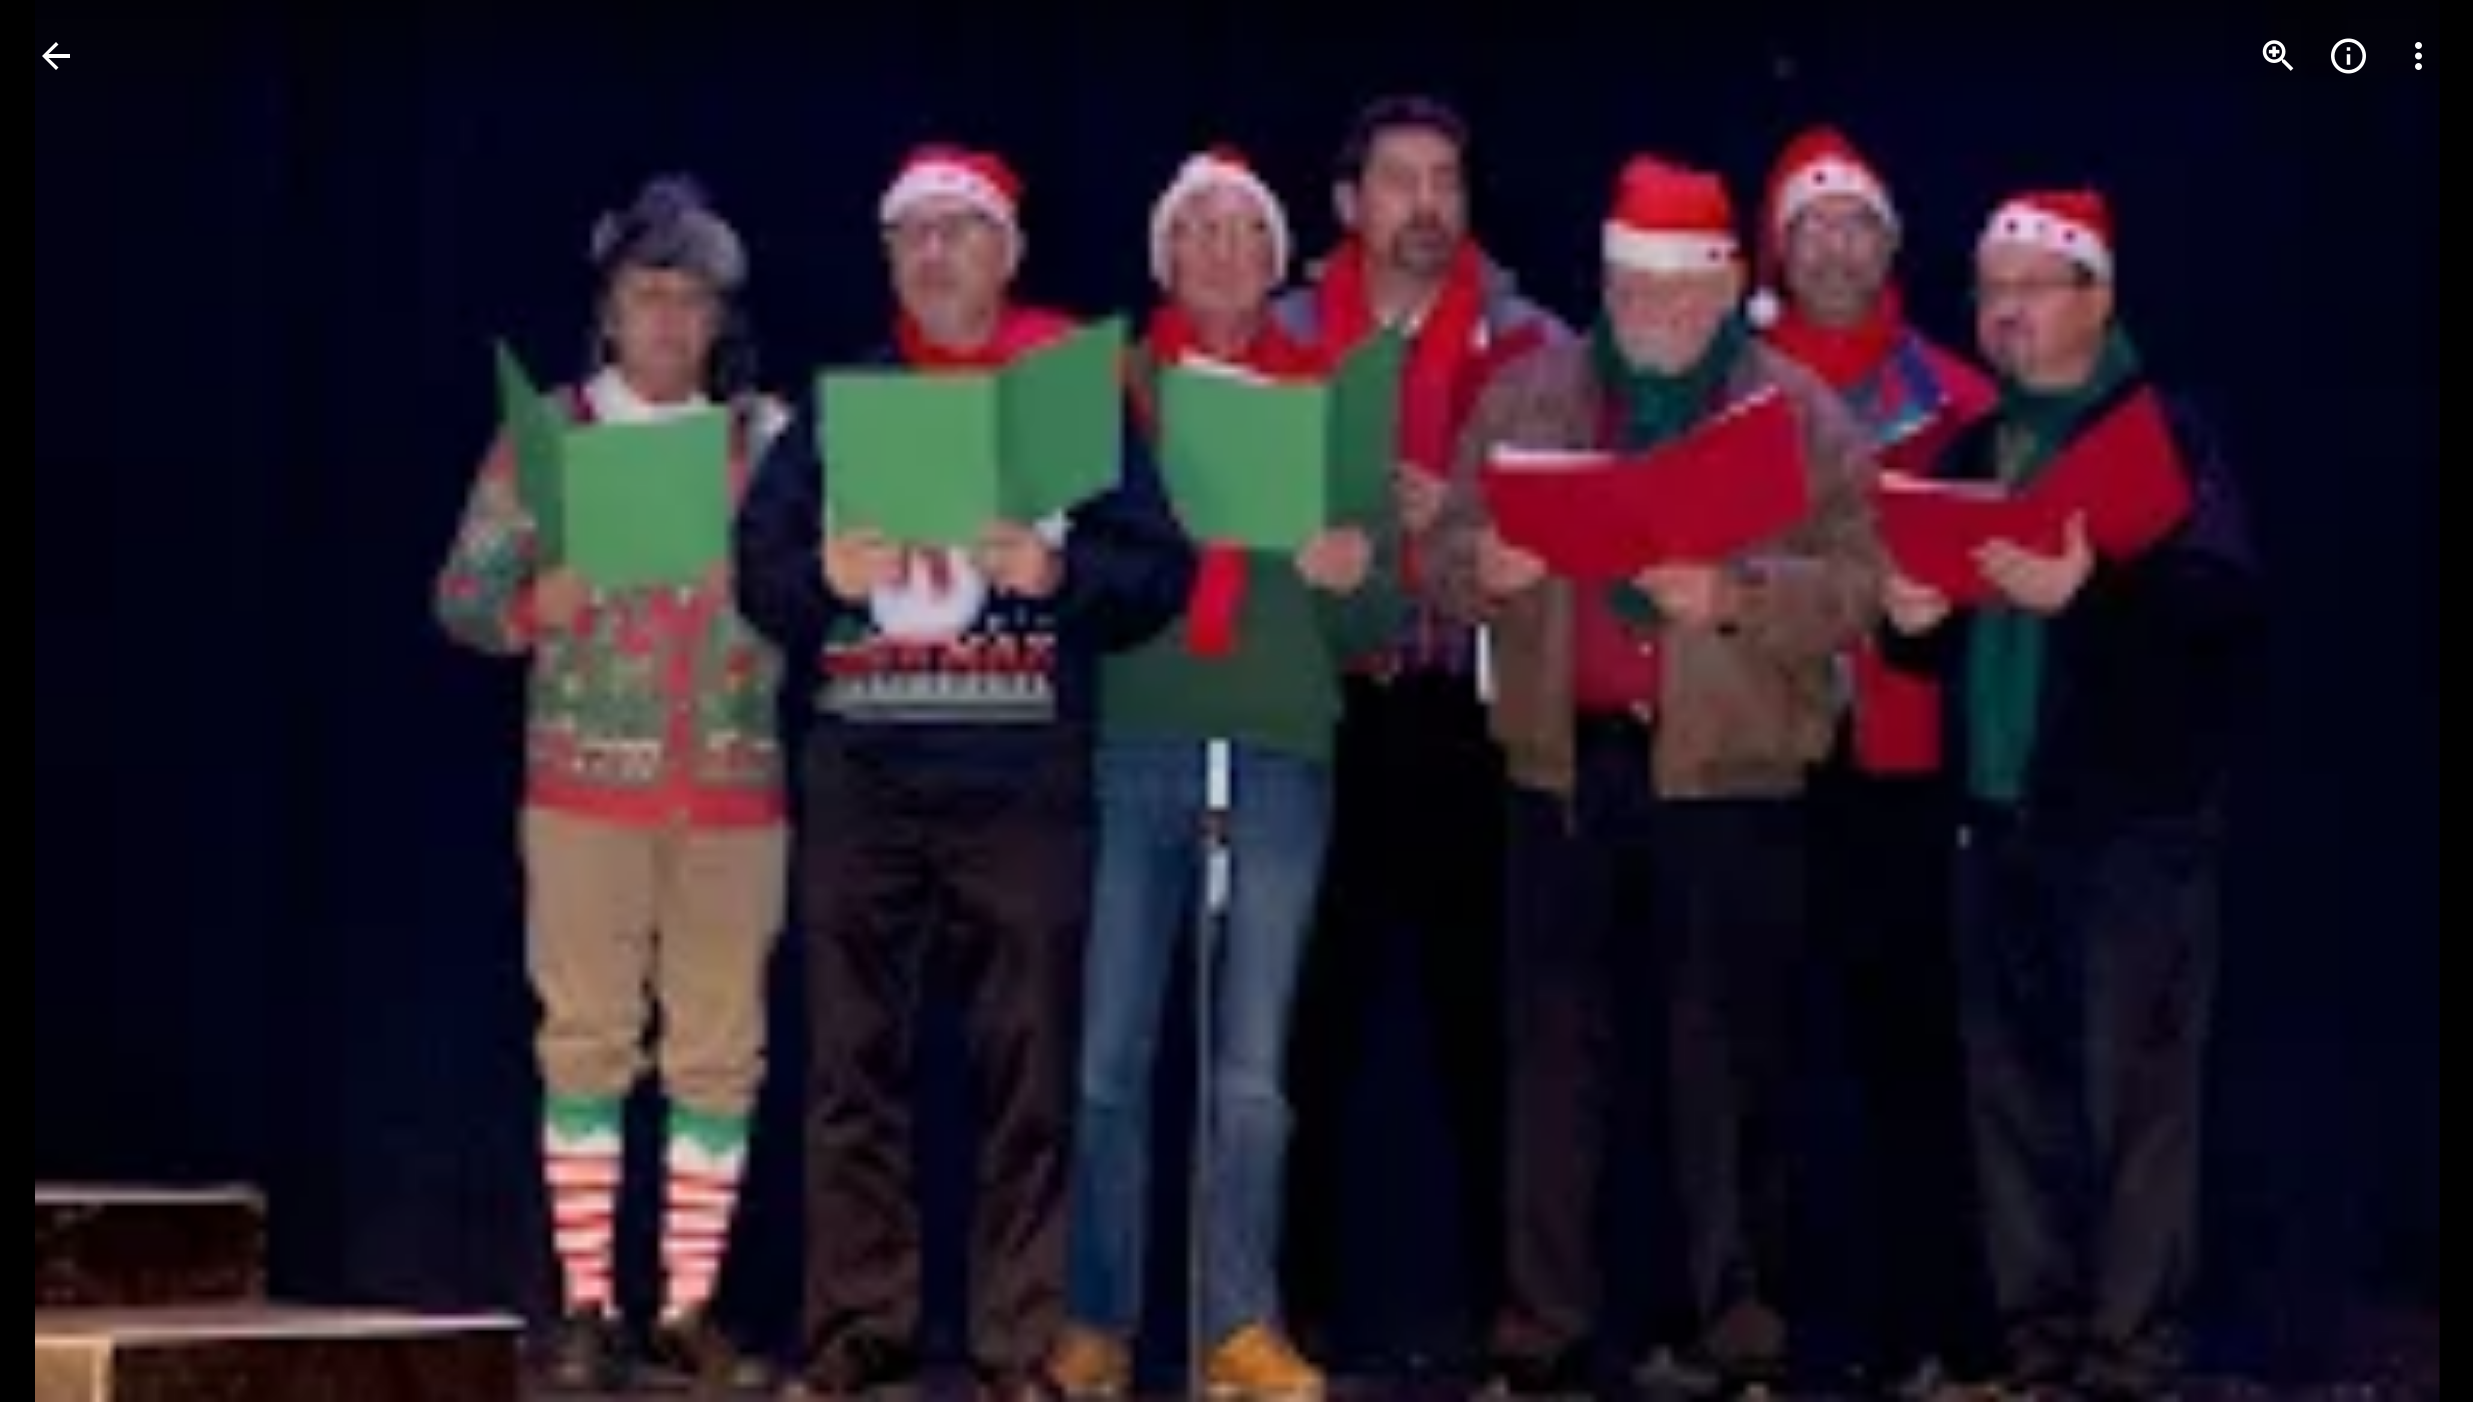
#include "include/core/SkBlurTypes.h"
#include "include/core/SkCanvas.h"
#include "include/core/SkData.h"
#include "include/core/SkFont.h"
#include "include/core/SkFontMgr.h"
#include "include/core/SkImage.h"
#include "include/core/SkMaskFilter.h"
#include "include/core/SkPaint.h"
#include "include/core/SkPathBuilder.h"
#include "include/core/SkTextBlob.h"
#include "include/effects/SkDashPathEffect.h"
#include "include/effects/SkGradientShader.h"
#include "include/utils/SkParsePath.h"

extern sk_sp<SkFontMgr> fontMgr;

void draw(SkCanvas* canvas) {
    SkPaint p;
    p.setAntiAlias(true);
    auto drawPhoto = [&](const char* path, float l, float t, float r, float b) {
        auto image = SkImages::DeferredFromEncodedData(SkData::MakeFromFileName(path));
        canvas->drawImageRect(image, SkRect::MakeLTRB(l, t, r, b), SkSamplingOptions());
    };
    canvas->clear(0xFF000000);
    drawPhoto("media/1.png", 35, 0, 2440, 1402);
    {
        const SkColor colors[] = {0x99000000, 0x00000000};
        const float stops[] = {0, 1};
        const SkPoint ends[] = {{1237, 0}, {1237, 112}};
        p.setShader(SkGradientShader::MakeLinear(ends, colors, stops, 2, SkTileMode::kClamp));
        p.setAlpha(255);
    }
    canvas->drawRect(SkRect::MakeLTRB(35, 0, 2440, 105), p);
    p.setShader(nullptr);
    p.setColor(0xFFFFFFFF);
    canvas->drawPath(SkPathBuilder().moveTo(70, 54).lineTo(48.5f, 54).lineTo(58.5f, 44.5f).lineTo(56, 42).lineTo(42, 56).lineTo(56, 70).lineTo(58.5f, 67.5f).lineTo(48.5f, 58).lineTo(70, 58).close().detach(), p);
    drawPhoto("media/2.png", 2262, 40, 2294, 71);
    drawPhoto("media/3.png", 2331, 38, 2366, 74);
    drawPhoto("media/4.png", 2415, 42, 2422, 70);
}
